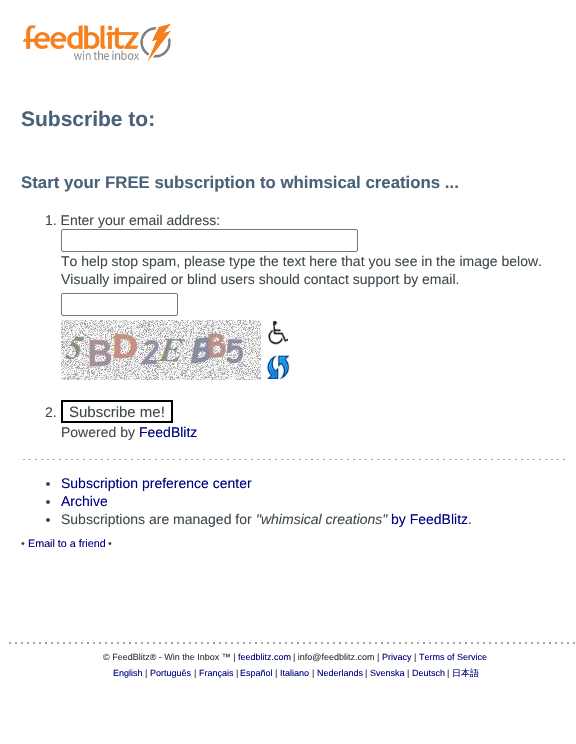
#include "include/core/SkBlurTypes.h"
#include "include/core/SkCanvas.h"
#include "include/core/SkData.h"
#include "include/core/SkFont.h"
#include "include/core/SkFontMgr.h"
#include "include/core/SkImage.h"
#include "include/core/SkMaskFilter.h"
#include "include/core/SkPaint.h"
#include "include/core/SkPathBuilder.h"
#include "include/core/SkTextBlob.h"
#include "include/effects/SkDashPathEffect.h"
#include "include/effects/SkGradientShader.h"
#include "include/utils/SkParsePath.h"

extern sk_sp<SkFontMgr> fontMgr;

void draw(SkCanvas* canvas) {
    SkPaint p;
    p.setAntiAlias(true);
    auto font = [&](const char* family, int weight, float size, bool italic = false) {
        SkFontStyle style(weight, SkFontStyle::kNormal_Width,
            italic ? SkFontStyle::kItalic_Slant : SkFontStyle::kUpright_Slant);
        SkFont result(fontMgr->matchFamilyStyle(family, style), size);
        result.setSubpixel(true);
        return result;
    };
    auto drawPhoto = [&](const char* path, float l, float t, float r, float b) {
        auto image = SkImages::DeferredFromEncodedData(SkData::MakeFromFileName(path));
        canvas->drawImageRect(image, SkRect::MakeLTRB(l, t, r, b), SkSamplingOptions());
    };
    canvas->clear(0xFFFFFFFF);
    drawPhoto("media/1.png", 22, 23, 171, 62);
    auto font1 = font("Liberation Sans", 700, 21);
    p.setColor(0xFF4A6279);
    canvas->drawString("Subscribe to:", 21, 126, font1, p);
    auto font2 = font("Liberation Sans", 700, 16.8f);
    canvas->drawString("Start your FREE subscription to whimsical creations ...", 21, 188, font2, p);
    auto font3 = font("Liberation Sans", 400, 14);
    p.setColor(0xFF3F4A50);
    canvas->drawString("1. Enter your email address:", 45, 225, font3, p);
    p.setStyle(SkPaint::kStroke_Style);
    p.setStrokeWidth(1);
    p.setColor(0xFF767676);
    canvas->drawRoundRect(SkRect::MakeLTRB(61.5f, 229.5f, 357.5f, 251.5f), 1.5f, 1.5f, p);
    p.setStyle(SkPaint::kFill_Style);
    p.setColor(0xFF3F4A50);
    canvas->drawString("To help stop spam, please type the text here that you see in the image below.", 61, 266, font3, p);
    canvas->drawString("Visually impaired or blind users should contact support by email.", 61, 284, font3, p);
    p.setStyle(SkPaint::kStroke_Style);
    p.setColor(0xFF767676);
    canvas->drawRoundRect(SkRect::MakeLTRB(61.5f, 293.5f, 177.5f, 315.5f), 1.5f, 1.5f, p);
    drawPhoto("media/2.png", 61, 320, 261, 380);
    drawPhoto("media/3.png", 268, 320, 288, 345);
    drawPhoto("media/4.png", 266, 355, 290, 379);
    p.setStyle(SkPaint::kFill_Style);
    p.setColor(0xFF3F4A50);
    canvas->drawString("2.", 45, 417, font3, p);
    p.setStyle(SkPaint::kStroke_Style);
    p.setStrokeWidth(2);
    p.setColor(0xFF000000);
    canvas->drawRect(SkRect::MakeLTRB(62, 401, 172, 422), p);
    auto font4 = font("Liberation Sans", 400, 15);
    p.setStyle(SkPaint::kFill_Style);
    p.setColor(0xFF3F4A50);
    canvas->drawString("Subscribe me!", 69, 417, font4, p);
    canvas->drawString("Powered by", 61, 437, font3, p);
    p.setColor(0xFF000080);
    canvas->drawString("FeedBlitz", 139, 437, font3, p);
    drawPhoto("media/5.png", 23, 459, 565, 460);
    p.setColor(0xFF3F4A50);
    canvas->drawCircle(48, 484, 2, p);
    p.setColor(0xFF000080);
    canvas->drawString("Subscription preference center", 61, 488, font3, p);
    p.setColor(0xFF3F4A50);
    canvas->drawCircle(48, 502, 2, p);
    p.setColor(0xFF000080);
    canvas->drawString("Archive", 61, 506, font3, p);
    p.setColor(0xFF3F4A50);
    canvas->drawCircle(48, 520, 2, p);
    canvas->drawString("Subscriptions are managed for", 61, 524, font3, p);
    auto font5 = font("Liberation Sans", 400, 14, true);
    canvas->drawString("\"whimsical creations\"", 256, 524, font5, p);
    p.setColor(0xFF000080);
    canvas->drawString("by FeedBlitz", 391, 524, font3, p);
    p.setColor(0xFF3F4A50);
    canvas->drawString(".", 468, 524, font3, p);
    auto font6 = font("Liberation Sans", 400, 10.75f);
    canvas->drawString("•", 21, 547, font6, p);
    p.setColor(0xFF000080);
    canvas->drawString("Email to a friend", 28, 547, font6, p);
    p.setColor(0xFF3F4A50);
    canvas->drawString("•", 108, 547, font6, p);
    drawPhoto("media/6.png", 9, 642, 575, 644);
    auto font7 = font("Liberation Sans", 400, 9);
    p.setColor(0xFF333333);
    canvas->drawString("© FeedBlitz® - Win the Inbox ™ |", 103, 660, font7, p);
    p.setColor(0xFF000080);
    canvas->drawString("feedblitz.com", 238, 660, font7, p);
    p.setColor(0xFF333333);
    canvas->drawString("| info@feedblitz.com |", 293, 660, font7, p);
    p.setColor(0xFF000080);
    canvas->drawString("Privacy", 382, 660, font7, p);
    p.setColor(0xFF333333);
    canvas->drawString("|", 414, 660, font7, p);
    p.setColor(0xFF000080);
    canvas->drawString("Terms of Service", 419, 660, font7, p);
    canvas->drawString("English", 113, 676, font7, p);
    p.setColor(0xFF333333);
    canvas->drawString("|", 145, 676, font7, p);
    p.setColor(0xFF000080);
    canvas->drawString("Português", 150, 676, font7, p);
    p.setColor(0xFF333333);
    canvas->drawString("|", 194, 676, font7, p);
    p.setColor(0xFF000080);
    canvas->drawString("Français", 199, 676, font7, p);
    p.setColor(0xFF333333);
    canvas->drawString("|", 236, 676, font7, p);
    p.setColor(0xFF000080);
    canvas->drawString("Español", 240, 676, font7, p);
    p.setColor(0xFF333333);
    canvas->drawString("|", 275, 676, font7, p);
    p.setColor(0xFF000080);
    canvas->drawString("Italiano", 280, 676, font7, p);
    p.setColor(0xFF333333);
    canvas->drawString("|", 312, 676, font7, p);
    p.setColor(0xFF000080);
    canvas->drawString("Nederlands", 317, 676, font7, p);
    p.setColor(0xFF333333);
    canvas->drawString("|", 365, 676, font7, p);
    p.setColor(0xFF000080);
    canvas->drawString("Svenska", 370, 676, font7, p);
    p.setColor(0xFF333333);
    canvas->drawString("|", 407, 676, font7, p);
    p.setColor(0xFF000080);
    canvas->drawString("Deutsch", 412, 676, font7, p);
    p.setColor(0xFF333333);
    canvas->drawString("|", 447, 676, font7, p);
    auto font8 = font("WenQuanYi Zen Hei", 500, 9);
    p.setColor(0xFF000080);
    canvas->drawString("日本語", 452, 676, font8, p);
}
